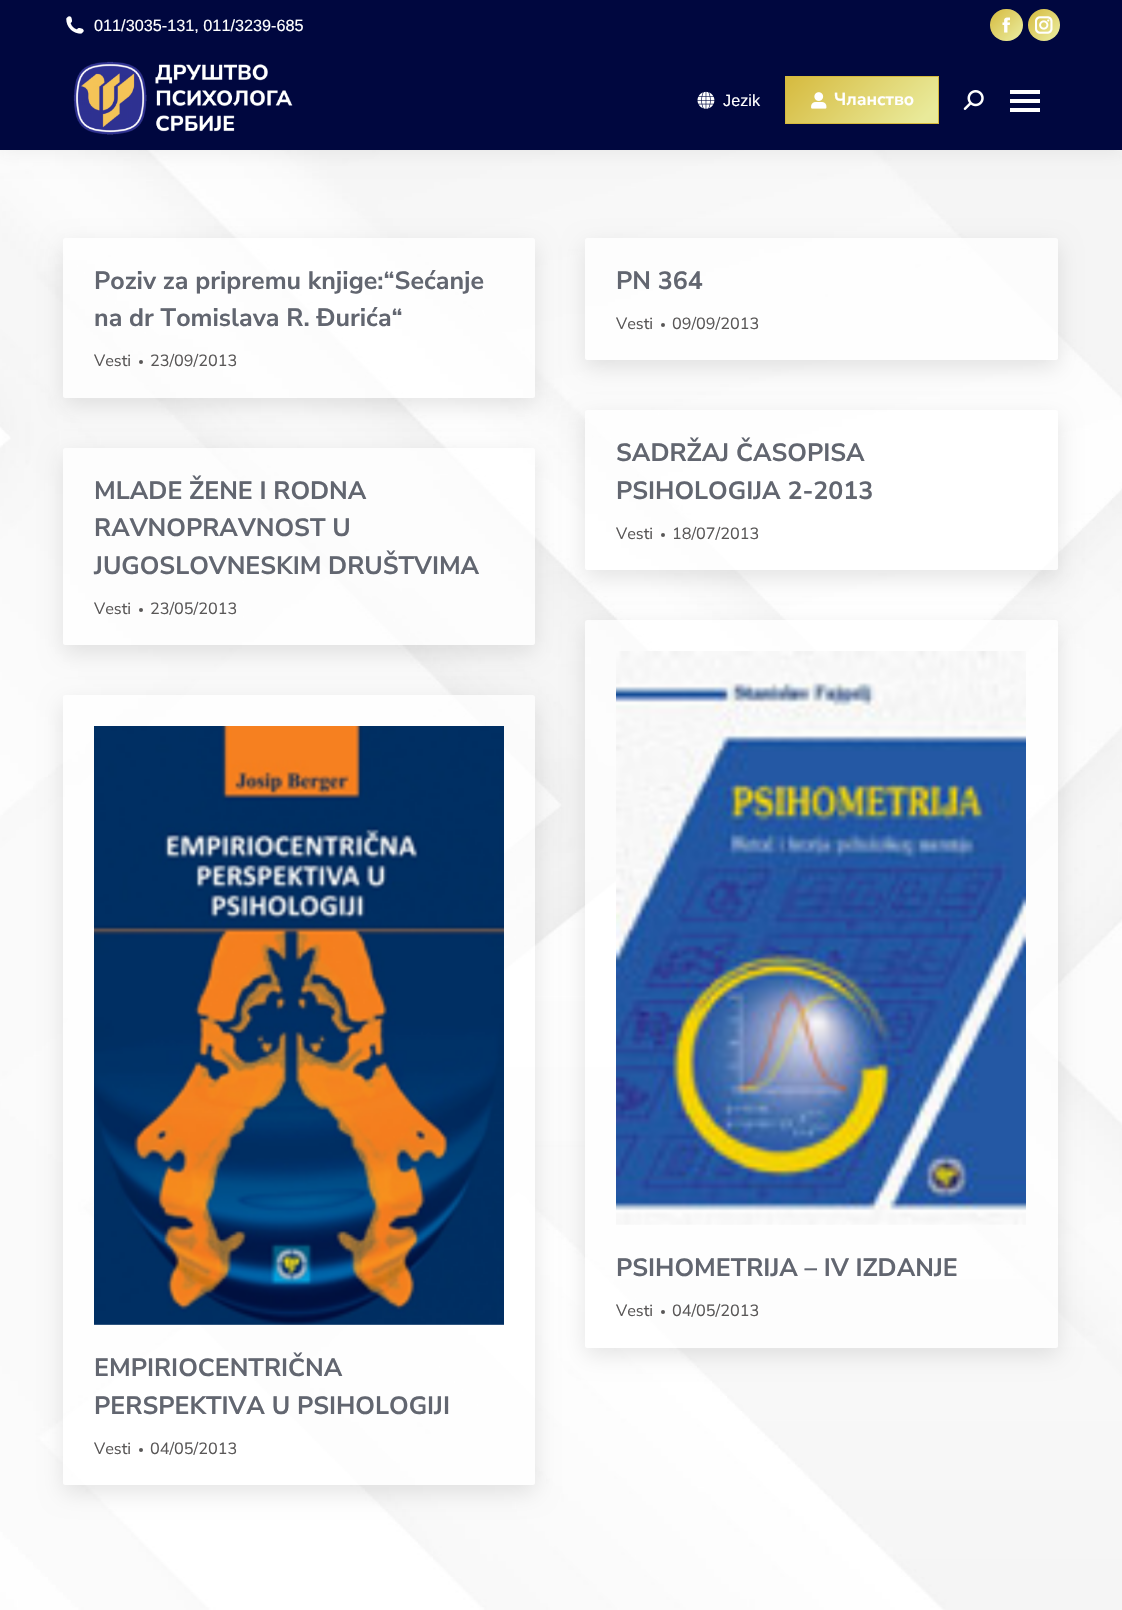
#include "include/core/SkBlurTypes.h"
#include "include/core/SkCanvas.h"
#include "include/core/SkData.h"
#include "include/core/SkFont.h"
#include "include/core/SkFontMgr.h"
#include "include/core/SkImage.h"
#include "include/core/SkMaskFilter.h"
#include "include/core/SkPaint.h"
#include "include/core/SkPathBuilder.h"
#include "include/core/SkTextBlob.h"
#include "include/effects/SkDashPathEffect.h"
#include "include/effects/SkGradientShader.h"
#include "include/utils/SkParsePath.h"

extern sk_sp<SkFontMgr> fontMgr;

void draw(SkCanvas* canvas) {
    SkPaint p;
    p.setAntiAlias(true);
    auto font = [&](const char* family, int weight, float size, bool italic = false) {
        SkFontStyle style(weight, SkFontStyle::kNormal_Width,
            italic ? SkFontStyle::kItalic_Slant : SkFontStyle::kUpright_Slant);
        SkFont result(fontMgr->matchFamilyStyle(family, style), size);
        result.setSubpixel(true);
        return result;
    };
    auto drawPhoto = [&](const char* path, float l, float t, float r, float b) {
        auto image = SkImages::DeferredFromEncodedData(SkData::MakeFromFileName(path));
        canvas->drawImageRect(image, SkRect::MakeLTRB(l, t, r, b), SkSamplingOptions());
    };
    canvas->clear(0xFFFFFFFF);
    drawPhoto("media/8.png", 0, 150, 1122, 1610);
    p.setColor(0x12000000);
    p.setMaskFilter(SkMaskFilter::MakeBlur(kNormal_SkBlurStyle, 9.5f));
    canvas->drawRect(SkRect::MakeLTRB(-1, -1, 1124, 151), p);
    p.setMaskFilter(nullptr);
    p.setColor(0xFF00073F);
    canvas->drawRect(SkRect::MakeLTRB(0, 0, 1122, 150), p);
    drawPhoto("media/1.png", 66, 16, 84, 34);
    auto font1 = font("Liberation Sans", 400, 16.25f);
    p.setColor(0xFFFFFFFF);
    canvas->drawString("011/3035-131, 011/3239-685", 94, 31, font1, p);
    {
        const SkColor colors[] = {0xFFD6BA3E, 0xFFE9EA9A};
        const float stops[] = {0, 0.9f};
        const SkPoint ends[] = {{990, 9}, {1023, 41}};
        p.setShader(SkGradientShader::MakeLinear(ends, colors, stops, 2, SkTileMode::kClamp));
        p.setAlpha(255);
    }
    canvas->drawRoundRect(SkRect::MakeLTRB(990, 9, 1023, 41), 16, 16, p);
    drawPhoto("media/2.png", 1002, 17, 1010, 33);
    {
        const SkColor colors[] = {0xFFD6BA3E, 0xFFE9EA9A};
        const float stops[] = {0, 0.9f};
        const SkPoint ends[] = {{1028, 9}, {1060, 41}};
        p.setShader(SkGradientShader::MakeLinear(ends, colors, stops, 2, SkTileMode::kClamp));
        p.setAlpha(255);
    }
    canvas->drawCircle(1044, 25, 16, p);
    drawPhoto("media/3.png", 1035, 16, 1053, 34);
    drawPhoto("media/4.png", 73, 61, 293, 135);
    drawPhoto("media/5.png", 697, 91, 715, 109);
    p.setShader(nullptr);
    p.setColor(0xFFFFFFFF);
    canvas->drawString("Jezik", 723, 106, font1, p);
    {
        const SkColor colors[] = {0xFFD6BA3E, 0xFFE9EA9A};
        const float stops[] = {0, 0.9f};
        const SkPoint ends[] = {{812, 50}, {912, 150}};
        p.setShader(SkGradientShader::MakeLinear(ends, colors, stops, 2, SkTileMode::kClamp));
        p.setAlpha(255);
    }
    canvas->drawRect(SkRect::MakeLTRB(786, 77, 938, 123), p);
    p.setStyle(SkPaint::kStroke_Style);
    p.setStrokeWidth(1);
    p.setShader(nullptr);
    p.setColor(0xFFD6BA3E);
    canvas->drawRect(SkRect::MakeLTRB(785.5f, 76.5f, 938.5f, 123.5f), p);
    drawPhoto("media/6.png", 811, 92, 827, 109);
    auto font2 = font("Nunito Sans", 700, 17.5f);
    p.setStyle(SkPaint::kFill_Style);
    p.setColor(0xFFFFFFFF);
    canvas->drawString("Чланство", 834, 105, font2, p);
    drawPhoto("media/7.png", 963, 90, 984, 110);
    {
        const struct { float l, t, r, b; SkColor color; } items[] = {
            {1010, 90, 1040, 94, 0xFFFFFFFF},
            {1010, 99, 1040, 103, 0xFFFFFFFF},
            {1010, 108, 1040, 112, 0xFFFFFFFF},
        };
        for (auto [l, t, r, b, color] : items) {
            p.setColor(color);
            canvas->drawRect(SkRect::MakeLTRB(l, t, r, b), p);
        }
    }
    canvas->save();
    canvas->clipPath(SkPathBuilder(SkPathFillType::kEvenOdd).moveTo(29, 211).lineTo(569, 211).lineTo(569, 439).lineTo(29, 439).close().moveTo(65.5f, 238).lineTo(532.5f, 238).cubicTo(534, 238, 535, 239, 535, 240.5f).lineTo(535, 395.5f).cubicTo(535, 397, 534, 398, 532.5f, 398).lineTo(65.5f, 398).cubicTo(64, 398, 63, 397, 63, 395.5f).lineTo(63, 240.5f).cubicTo(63, 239, 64, 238, 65.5f, 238).close().detach(), true);
    p.setColor(0x1A000000);
    p.setMaskFilter(SkMaskFilter::MakeBlur(kNormal_SkBlurStyle, 11));
    canvas->drawRoundRect(SkRect::MakeLTRB(63, 245, 535, 405), 2.5f, 2.5f, p);
    p.setMaskFilter(nullptr);
    canvas->restore();
    p.setColor(0xB5FFFFFF);
    canvas->drawRoundRect(SkRect::MakeLTRB(63, 238, 535, 398), 2.5f, 2.5f, p);
    auto font3 = font("Nunito Sans", 700, 25);
    p.setColor(0xFF626670);
    canvas->drawString("Poziv za pripremu knjige:“Sećanje", 94, 289, font3, p);
    canvas->drawString("na dr Tomislava R. Đurića“", 94, 326, font3, p);
    auto font4 = font("Nunito Sans", 400, 16.25f);
    p.setColor(0xFF595757);
    canvas->drawString("Vesti", 94, 366, font4, p);
    canvas->drawCircle(141, 362, 2, p);
    canvas->drawString("23/09/2013", 150, 366, font4, p);
    canvas->save();
    canvas->clipPath(SkPathBuilder(SkPathFillType::kEvenOdd).moveTo(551, 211).lineTo(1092, 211).lineTo(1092, 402).lineTo(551, 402).close().moveTo(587.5f, 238).lineTo(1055.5f, 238).cubicTo(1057, 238, 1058, 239, 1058, 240.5f).lineTo(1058, 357.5f).cubicTo(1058, 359, 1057, 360, 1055.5f, 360).lineTo(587.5f, 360).cubicTo(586, 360, 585, 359, 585, 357.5f).lineTo(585, 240.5f).cubicTo(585, 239, 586, 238, 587.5f, 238).close().detach(), true);
    p.setColor(0x1A000000);
    p.setMaskFilter(SkMaskFilter::MakeBlur(kNormal_SkBlurStyle, 11));
    canvas->drawRoundRect(SkRect::MakeLTRB(585, 245, 1058, 368), 2.5f, 2.5f, p);
    p.setMaskFilter(nullptr);
    canvas->restore();
    p.setColor(0xB5FFFFFF);
    canvas->drawRoundRect(SkRect::MakeLTRB(585, 238, 1058, 360), 2.5f, 2.5f, p);
    p.setColor(0xFF626670);
    canvas->drawString("PN 364", 616, 289, font3, p);
    p.setColor(0xFF595757);
    canvas->drawString("Vesti", 616, 329, font4, p);
    canvas->drawCircle(663, 325, 2, p);
    canvas->drawString("09/09/2013", 672, 329, font4, p);
    canvas->save();
    canvas->clipPath(SkPathBuilder(SkPathFillType::kEvenOdd).moveTo(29, 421).lineTo(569, 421).lineTo(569, 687).lineTo(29, 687).close().moveTo(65.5f, 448).lineTo(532.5f, 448).cubicTo(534, 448, 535, 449, 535, 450.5f).lineTo(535, 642.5f).cubicTo(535, 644, 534, 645, 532.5f, 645).lineTo(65.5f, 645).cubicTo(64, 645, 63, 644, 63, 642.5f).lineTo(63, 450.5f).cubicTo(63, 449, 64, 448, 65.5f, 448).close().detach(), true);
    p.setColor(0x1A000000);
    p.setMaskFilter(SkMaskFilter::MakeBlur(kNormal_SkBlurStyle, 11));
    canvas->drawRoundRect(SkRect::MakeLTRB(63, 455, 535, 653), 2.5f, 2.5f, p);
    p.setMaskFilter(nullptr);
    canvas->restore();
    p.setColor(0xB5FFFFFF);
    canvas->drawRoundRect(SkRect::MakeLTRB(63, 448, 535, 645), 2.5f, 2.5f, p);
    p.setColor(0xFF626670);
    {
        const struct { const char* s; float x, y; } items[] = {
            {"MLADE ŽENE I RODNA", 94, 499},
            {"RAVNOPRAVNOST U", 94, 536},
            {"JUGOSLOVNESKIM DRUŠTVIMA", 94, 574},
        };
        for (auto [s, x, y] : items) {
            canvas->drawString(s, x, y, font3, p);
        }
    }
    p.setColor(0xFF595757);
    canvas->drawString("Vesti", 94, 614, font4, p);
    canvas->drawCircle(141, 610, 2, p);
    canvas->drawString("23/05/2013", 150, 614, font4, p);
    canvas->save();
    canvas->clipPath(SkPathBuilder(SkPathFillType::kEvenOdd).moveTo(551, 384).lineTo(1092, 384).lineTo(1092, 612).lineTo(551, 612).close().moveTo(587.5f, 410).lineTo(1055.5f, 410).cubicTo(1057, 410, 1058, 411, 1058, 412.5f).lineTo(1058, 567.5f).cubicTo(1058, 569, 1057, 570, 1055.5f, 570).lineTo(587.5f, 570).cubicTo(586, 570, 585, 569, 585, 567.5f).lineTo(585, 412.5f).cubicTo(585, 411, 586, 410, 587.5f, 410).close().detach(), true);
    p.setColor(0x1A000000);
    p.setMaskFilter(SkMaskFilter::MakeBlur(kNormal_SkBlurStyle, 11));
    canvas->drawRoundRect(SkRect::MakeLTRB(585, 418, 1058, 578), 2.5f, 2.5f, p);
    p.setMaskFilter(nullptr);
    canvas->restore();
    p.setColor(0xB5FFFFFF);
    canvas->drawRoundRect(SkRect::MakeLTRB(585, 410, 1058, 570), 2.5f, 2.5f, p);
    p.setColor(0xFF626670);
    canvas->drawString("SADRŽAJ ČASOPISA", 616, 461, font3, p);
    canvas->drawString("PSIHOLOGIJA 2-2013", 616, 499, font3, p);
    p.setColor(0xFF595757);
    canvas->drawString("Vesti", 616, 539, font4, p);
    canvas->drawCircle(663, 535, 2, p);
    canvas->drawString("18/07/2013", 672, 539, font4, p);
    canvas->save();
    canvas->clipPath(SkPathBuilder(SkPathFillType::kEvenOdd).moveTo(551, 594).lineTo(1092, 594).lineTo(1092, 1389).lineTo(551, 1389).close().moveTo(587.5f, 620).lineTo(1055.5f, 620).cubicTo(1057, 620, 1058, 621, 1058, 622.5f).lineTo(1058, 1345.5f).cubicTo(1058, 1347, 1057, 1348, 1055.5f, 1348).lineTo(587.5f, 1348).cubicTo(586, 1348, 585, 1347, 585, 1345.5f).lineTo(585, 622.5f).cubicTo(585, 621, 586, 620, 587.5f, 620).close().detach(), true);
    p.setColor(0x1A000000);
    p.setMaskFilter(SkMaskFilter::MakeBlur(kNormal_SkBlurStyle, 11));
    canvas->drawRoundRect(SkRect::MakeLTRB(585, 628, 1058, 1355), 2.5f, 2.5f, p);
    p.setMaskFilter(nullptr);
    canvas->restore();
    p.setColor(0xB5FFFFFF);
    canvas->drawRoundRect(SkRect::MakeLTRB(585, 620, 1058, 1348), 2.5f, 2.5f, p);
    drawPhoto("media/9.png", 616, 651, 1026, 1225);
    p.setColor(0xFF626670);
    canvas->drawString("PSIHOMETRIJA – IV IZDANJE", 616, 1276, font3, p);
    p.setColor(0xFF595757);
    canvas->drawString("Vesti", 616, 1316, font4, p);
    canvas->drawCircle(663, 1312, 2, p);
    canvas->drawString("04/05/2013", 672, 1316, font4, p);
    canvas->save();
    canvas->clipPath(SkPathBuilder(SkPathFillType::kEvenOdd).moveTo(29, 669).lineTo(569, 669).lineTo(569, 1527).lineTo(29, 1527).close().moveTo(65.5f, 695).lineTo(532.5f, 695).cubicTo(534, 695, 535, 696, 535, 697.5f).lineTo(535, 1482.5f).cubicTo(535, 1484, 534, 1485, 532.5f, 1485).lineTo(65.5f, 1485).cubicTo(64, 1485, 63, 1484, 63, 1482.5f).lineTo(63, 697.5f).cubicTo(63, 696, 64, 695, 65.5f, 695).close().detach(), true);
    p.setColor(0x1A000000);
    p.setMaskFilter(SkMaskFilter::MakeBlur(kNormal_SkBlurStyle, 11));
    canvas->drawRoundRect(SkRect::MakeLTRB(63, 703, 535, 1493), 2.5f, 2.5f, p);
    p.setMaskFilter(nullptr);
    canvas->restore();
    p.setColor(0xB5FFFFFF);
    canvas->drawRoundRect(SkRect::MakeLTRB(63, 695, 535, 1485), 2.5f, 2.5f, p);
    drawPhoto("media/10.png", 94, 726, 504, 1325);
    p.setColor(0xFF626670);
    canvas->drawString("EMPIRIOCENTRIČNA", 94, 1376, font3, p);
    canvas->drawString("PERSPEKTIVA U PSIHOLOGIJI", 94, 1414, font3, p);
    p.setColor(0xFF595757);
    canvas->drawString("Vesti", 94, 1454, font4, p);
    canvas->drawCircle(141, 1450, 2, p);
    canvas->drawString("04/05/2013", 150, 1454, font4, p);
}
